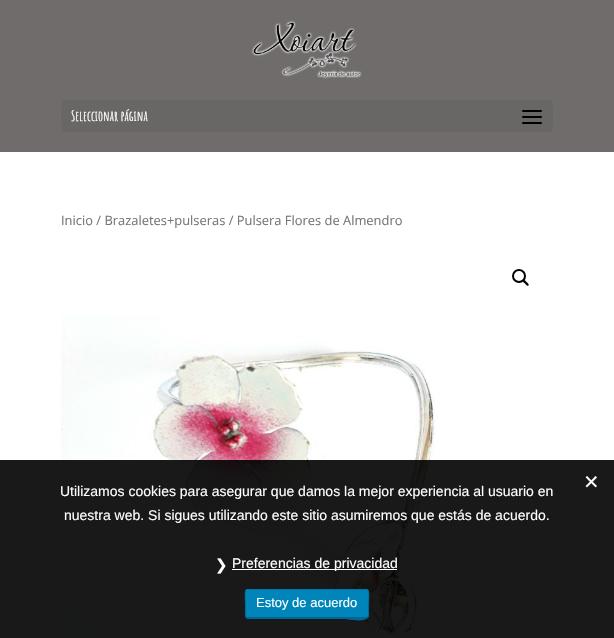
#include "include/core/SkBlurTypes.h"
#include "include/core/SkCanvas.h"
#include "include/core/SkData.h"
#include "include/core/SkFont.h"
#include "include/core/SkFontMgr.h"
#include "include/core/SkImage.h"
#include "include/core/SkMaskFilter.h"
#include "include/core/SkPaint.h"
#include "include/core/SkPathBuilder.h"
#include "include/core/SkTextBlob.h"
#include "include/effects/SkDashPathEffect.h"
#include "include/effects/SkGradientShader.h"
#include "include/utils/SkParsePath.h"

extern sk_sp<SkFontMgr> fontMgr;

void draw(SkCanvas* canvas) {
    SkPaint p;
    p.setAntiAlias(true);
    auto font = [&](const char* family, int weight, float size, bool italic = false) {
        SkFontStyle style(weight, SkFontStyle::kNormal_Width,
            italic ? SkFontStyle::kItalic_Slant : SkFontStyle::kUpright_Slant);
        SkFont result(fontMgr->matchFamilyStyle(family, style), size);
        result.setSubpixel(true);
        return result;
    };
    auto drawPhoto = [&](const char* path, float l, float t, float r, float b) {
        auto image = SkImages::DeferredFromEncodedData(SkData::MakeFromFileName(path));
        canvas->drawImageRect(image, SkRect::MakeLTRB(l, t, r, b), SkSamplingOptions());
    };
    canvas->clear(0xFFFFFFFF);
    p.setColor(0xFF6F6C6B);
    canvas->drawRect(SkRect::MakeLTRB(0, 0, 614, 152), p);
    drawPhoto("media/1.png", 251, 20, 362, 79);
    p.setColor(0xFF696766);
    canvas->drawRoundRect(SkRect::MakeLTRB(61, 100, 553, 132), 5, 5, p);
    auto font1 = font("Amatic SC", 700, 14);
    p.setColor(0xFFFFFFFF);
    canvas->drawString("Seleccionar página", 71, 121, font1, p);
    drawPhoto("media/2.png", 522, 110, 542, 124);
    auto font2 = font("Open Sans", 400, 12.9f);
    p.setColor(0xFF767676);
    canvas->drawString("Inicio / Brazaletes+pulseras / Pulsera Flores de Almendro", 61, 225, font2, p);
    p.setStyle(SkPaint::kStroke_Style);
    p.setStrokeWidth(2);
    p.setColor(0xFF000000);
    canvas->drawCircle(519, 276, 6, p);
    p.setStyle(SkPaint::kFill_Style);
    canvas->drawPath(SkPathBuilder().moveTo(523, 280).cubicTo(524, 278.5f, 525.5f, 281.5f, 526.5f, 282).cubicTo(527, 282.5f, 529.5f, 284.5f, 528.5f, 285.5f).cubicTo(527, 286.5f, 525.5f, 284, 525, 283.5f).cubicTo(524.5f, 283, 521.5f, 281, 523, 280).close().detach(), p);
    drawPhoto("media/3.png", 61, 315, 548, 638);
    p.setColor(0xE6000000);
    canvas->drawRect(SkRect::MakeLTRB(0, 460, 614, 638), p);
    auto font3 = font("Liberation Sans", 400, 25);
    p.setColor(0xFFFFFFFF);
    canvas->drawString("×", 584, 490, font3, p);
    auto font4 = font("DejaVu Sans", 400, 15);
    canvas->drawString("❯", 215, 570, font4, p);
    canvas->drawRect(SkRect::MakeLTRB(232, 569, 397, 570), p);
    auto font5 = font("Liberation Sans", 400, 14);
    canvas->drawString("Preferencias de privacidad", 232, 568, font5, p);
    p.setColor(0xFF006799);
    canvas->drawPath(SkPathBuilder().moveTo(245, 615).cubicTo(245, 617, 246, 619, 248, 619).lineTo(346, 619).cubicTo(347, 619, 369, 624, 369, 615).cubicTo(369, 617, 368, 618, 366, 618).lineTo(248, 618).cubicTo(246, 618, 245, 617, 245, 615).close().detach(), p);
    p.setColor(0xFF0085BA);
    canvas->drawRoundRect(SkRect::MakeLTRB(245, 589, 369, 618), 3, 3, p);
    p.setStyle(SkPaint::kStroke_Style);
    p.setStrokeWidth(1);
    p.setColor(0xFF0073AA);
    canvas->drawPath(SkPathBuilder().moveTo(246, 590).lineTo(248, 589.5f).lineTo(366, 589.5f).lineTo(368, 590).detach(), p);
    p.setColor(0xFF006799);
    canvas->drawPath(SkPathBuilder().moveTo(368, 590).cubicTo(369.5f, 592, 368.5f, 601, 368.5f, 603.5f).lineTo(368.5f, 611).cubicTo(368.5f, 613, 369.5f, 617.5f, 366, 617.5f).lineTo(248, 617.5f).cubicTo(244.5f, 617.5f, 245.5f, 613, 245.5f, 611).lineTo(245.5f, 603.5f).cubicTo(245.5f, 601, 244.5f, 592, 246, 590).detach(), p);
    auto font6 = font("Liberation Sans", 400, 13);
    p.setStyle(SkPaint::kFill_Style);
    p.setColor(0xFFFFFFFF);
    canvas->drawString("Estoy de acuerdo", 256, 607, font6, p);
    canvas->drawString("Utilizamos cookies para asegurar que damos la mejor experiencia al usuario en", 60, 496, font5, p);
    canvas->drawString("nuestra web. Si sigues utilizando este sitio asumiremos que estás de acuerdo.", 64, 520, font5, p);
}
